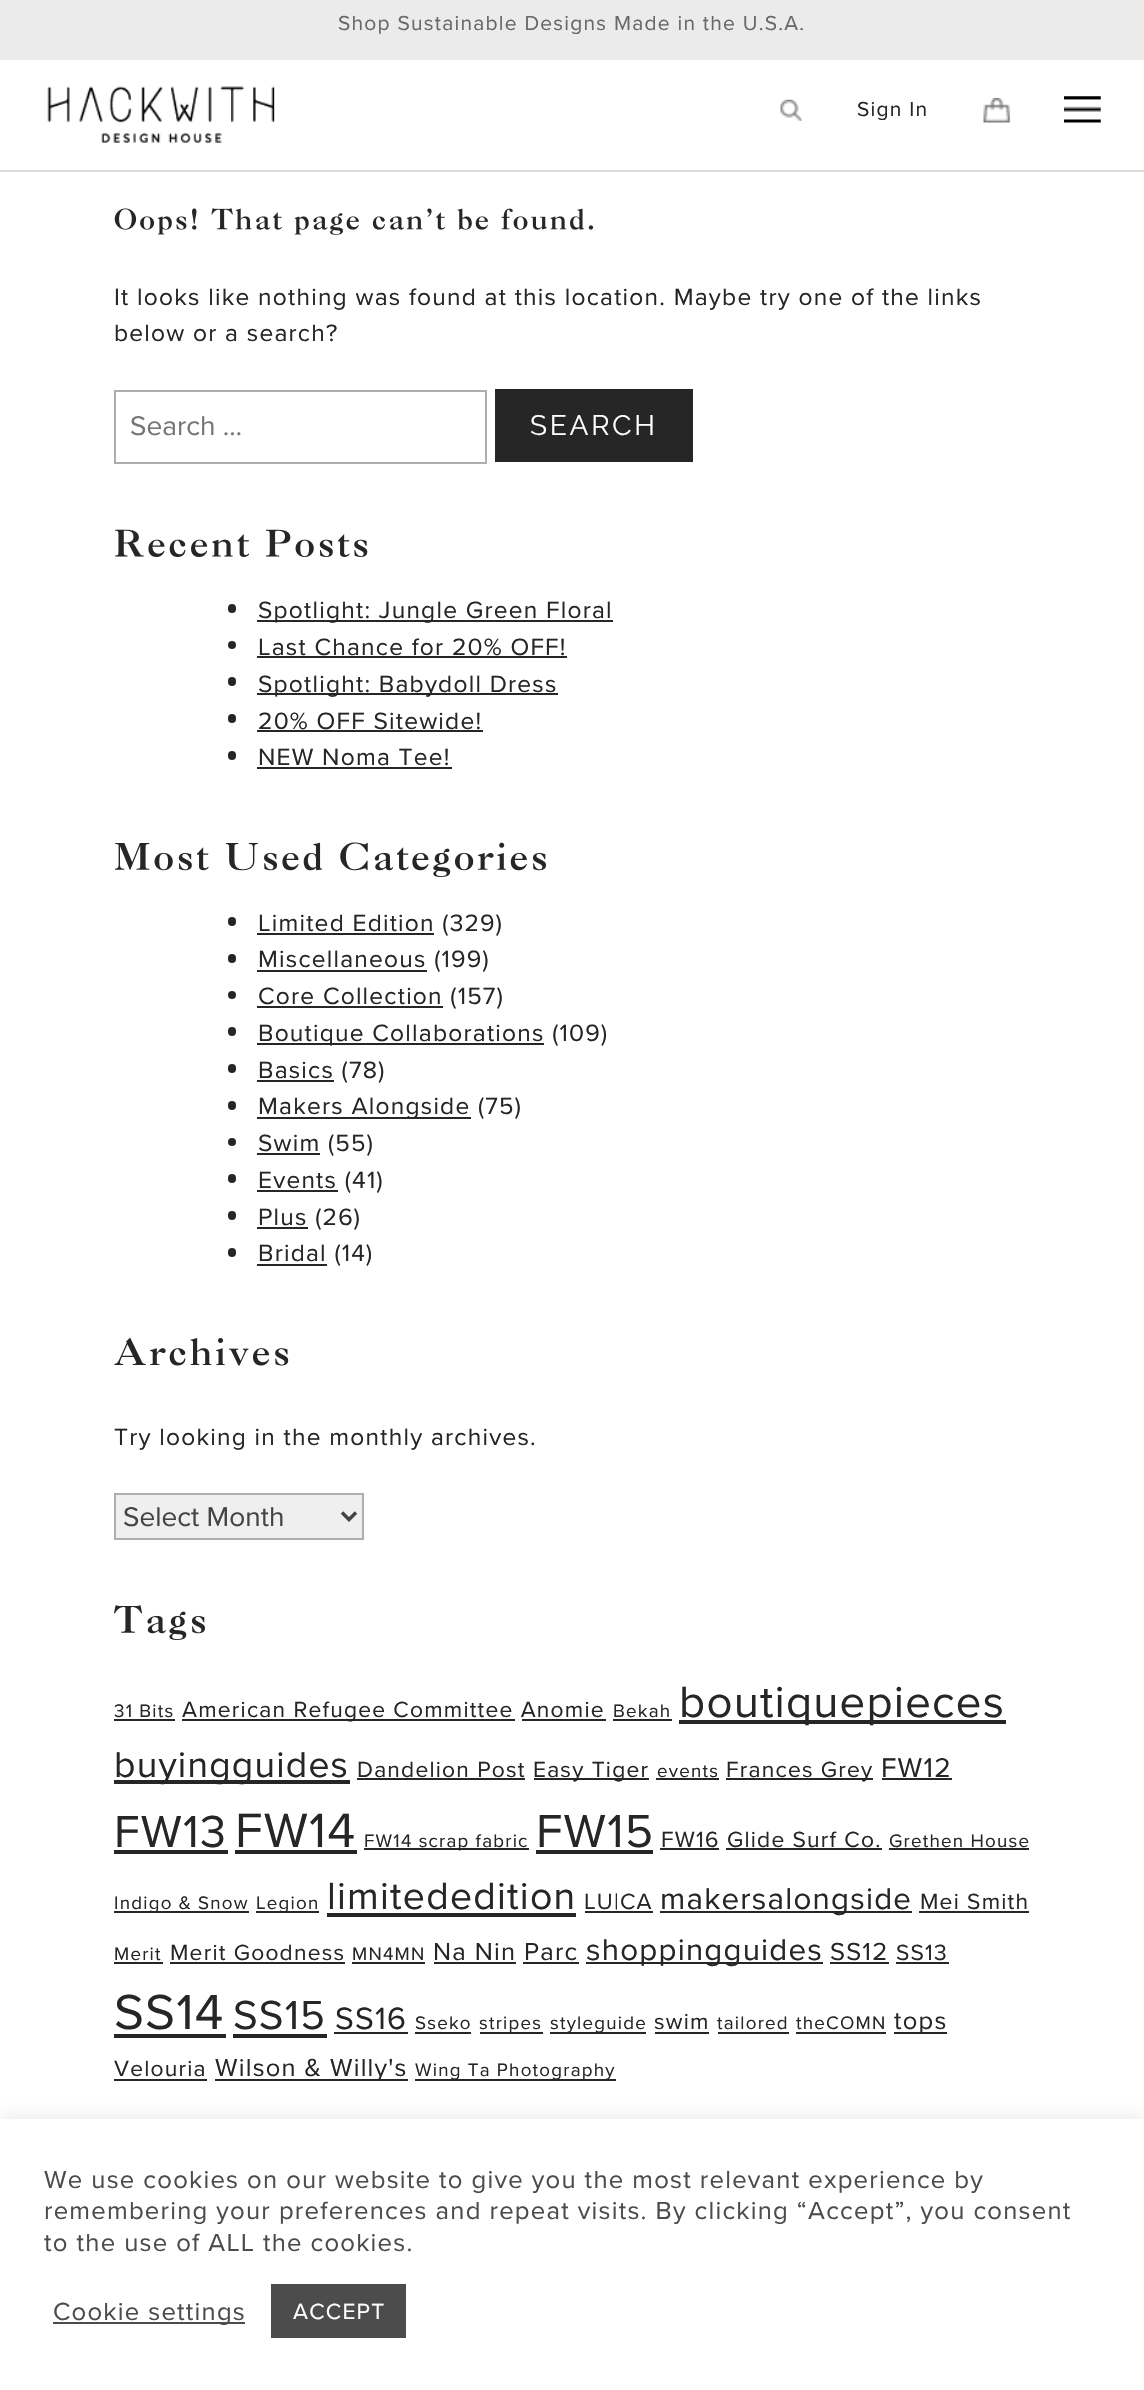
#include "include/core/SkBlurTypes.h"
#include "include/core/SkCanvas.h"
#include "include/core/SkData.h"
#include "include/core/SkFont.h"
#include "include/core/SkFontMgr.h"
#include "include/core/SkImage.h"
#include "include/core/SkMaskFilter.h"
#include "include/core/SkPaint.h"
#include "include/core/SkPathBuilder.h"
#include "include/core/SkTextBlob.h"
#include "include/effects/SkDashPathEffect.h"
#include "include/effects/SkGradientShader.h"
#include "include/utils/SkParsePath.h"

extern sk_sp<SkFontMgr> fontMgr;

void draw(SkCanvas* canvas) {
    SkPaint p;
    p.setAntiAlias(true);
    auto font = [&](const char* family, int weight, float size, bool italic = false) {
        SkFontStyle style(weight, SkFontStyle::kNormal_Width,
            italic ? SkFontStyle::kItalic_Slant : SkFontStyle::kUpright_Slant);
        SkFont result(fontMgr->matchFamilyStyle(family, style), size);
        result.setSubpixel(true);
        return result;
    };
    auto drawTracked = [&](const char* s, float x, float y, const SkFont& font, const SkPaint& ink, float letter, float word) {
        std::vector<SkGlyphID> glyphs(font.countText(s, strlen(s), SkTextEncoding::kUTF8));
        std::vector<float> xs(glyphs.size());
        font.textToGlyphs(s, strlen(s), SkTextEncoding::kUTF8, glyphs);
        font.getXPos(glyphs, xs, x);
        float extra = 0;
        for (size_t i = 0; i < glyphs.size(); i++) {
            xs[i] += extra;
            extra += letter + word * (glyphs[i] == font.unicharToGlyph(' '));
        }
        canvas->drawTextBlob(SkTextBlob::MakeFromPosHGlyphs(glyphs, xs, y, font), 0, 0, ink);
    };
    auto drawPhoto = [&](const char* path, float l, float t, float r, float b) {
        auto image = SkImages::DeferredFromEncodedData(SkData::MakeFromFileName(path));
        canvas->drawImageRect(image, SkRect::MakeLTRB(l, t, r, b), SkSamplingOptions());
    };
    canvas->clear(0xFFFFFFFF);
    p.setColor(0xFFDEDEDE);
    canvas->drawRect(SkRect::MakeLTRB(0, 170, 1144, 172), p);
    p.setColor(0xFFEBEBEB);
    canvas->drawRect(SkRect::MakeLTRB(0, 0, 1144, 60), p);
    auto font1 = font("Proxima Nova", 400, 21);
    p.setColor(0xFF686868);
    drawTracked("Shop Sustainable Designs Made in the U.S.A.", 338, 30, font1, p, 1.22f, 0);
    drawPhoto("media/1.png", 47, 86, 275, 143);
    drawPhoto("media/2.png", 780, 99, 802, 121);
    p.setColor(0xFF262626);
    drawTracked("Sign In", 857, 116, font1, p, 1.22f, 0);
    drawPhoto("media/3.png", 983, 98, 1010, 123);
    drawPhoto("media/4.png", 1064, 96, 1101, 123);
    drawPhoto("media/5.png", 114, 208, 594, 235);
    auto font2 = font("Proxima Nova", 400, 24.5f);
    drawTracked("It looks like nothing was found at this location. Maybe try one of the links", 114, 305, font2, p, 1.22f, 0);
    drawTracked("below or a search?", 114, 341, font2, p, 1.22f, 0);
    p.setStyle(SkPaint::kStroke_Style);
    p.setStrokeWidth(2);
    p.setColor(0xFFAEAEAF);
    canvas->drawRect(SkRect::MakeLTRB(115, 391, 486, 463), p);
    auto font3 = font("Proxima Nova", 400, 28);
    p.setStyle(SkPaint::kFill_Style);
    p.setColor(0xFF757575);
    canvas->drawString("Search …", 130, 435, font3, p);
    p.setColor(0xFF262626);
    canvas->drawRect(SkRect::MakeLTRB(495, 389, 693, 462), p);
    auto font4 = font("Raleway", 400, 28);
    p.setColor(0xFFFFFFFF);
    drawTracked("SEARCH", 530, 435, font4, p, 2.75f, 0);
    drawPhoto("media/6.png", 115, 529, 368, 557);
    p.setColor(0xFF262626);
    canvas->drawRoundRect(SkRect::MakeLTRB(228, 604, 236, 613), 4, 4, p);
    canvas->drawRect(SkRect::MakeLTRB(257, 620, 613, 622), p);
    drawTracked("Spotlight: Jungle Green Floral", 258, 618, font2, p, 1.22f, 0);
    canvas->drawCircle(232, 645, 4, p);
    drawTracked("Last Chance for 20% OFF!", 258, 655, font2, p, 1.22f, 0);
    canvas->drawRect(SkRect::MakeLTRB(257, 656, 567, 658), p);
    canvas->drawRoundRect(SkRect::MakeLTRB(228, 677, 236, 686), 4, 4, p);
    canvas->drawRect(SkRect::MakeLTRB(257, 693, 558, 695), p);
    drawTracked("Spotlight: Babydoll Dress", 258, 692, font2, p, 1.22f, 0);
    canvas->drawRoundRect(SkRect::MakeLTRB(228, 714, 236, 723), 4, 4, p);
    drawTracked("20% OFF Sitewide!", 258, 729, font2, p, 1.22f, 0);
    canvas->drawRect(SkRect::MakeLTRB(257, 730, 483, 732), p);
    canvas->drawRoundRect(SkRect::MakeLTRB(228, 751, 236, 760), 4, 4, p);
    drawTracked("NEW Noma Tee!", 258, 765, font2, p, 1.22f, 0);
    canvas->drawRect(SkRect::MakeLTRB(257, 767, 452, 769), p);
    drawPhoto("media/7.png", 115, 842, 546, 877);
    canvas->drawRoundRect(SkRect::MakeLTRB(228, 917, 236, 926), 4, 4, p);
    canvas->drawRect(SkRect::MakeLTRB(257, 933, 434, 935), p);
    drawTracked("Limited Edition (329)", 258, 931, font2, p, 1.22f, 0);
    canvas->drawRoundRect(SkRect::MakeLTRB(228, 954, 236, 963), 4, 4, p);
    canvas->drawRect(SkRect::MakeLTRB(257, 970, 427, 972), p);
    drawTracked("Miscellaneous (199)", 258, 967, font2, p, 1.22f, 0);
    canvas->drawCircle(232, 995, 4, p);
    canvas->drawRect(SkRect::MakeLTRB(257, 1006, 443, 1008), p);
    drawTracked("Core Collection (157)", 258, 1004, font2, p, 1.22f, 0);
    canvas->drawRoundRect(SkRect::MakeLTRB(228, 1027, 236, 1036), 4, 4, p);
    canvas->drawRect(SkRect::MakeLTRB(257, 1043, 544, 1045), p);
    drawTracked("Boutique Collaborations (109)", 258, 1041, font2, p, 1.22f, 0);
    canvas->drawRoundRect(SkRect::MakeLTRB(228, 1064, 236, 1073), 4, 4, p);
    canvas->drawRect(SkRect::MakeLTRB(257, 1080, 334, 1082), p);
    drawTracked("Basics (78)", 258, 1078, font2, p, 1.22f, 0);
    canvas->drawRoundRect(SkRect::MakeLTRB(228, 1101, 236, 1110), 4, 4, p);
    canvas->drawRect(SkRect::MakeLTRB(257, 1117, 471, 1119), p);
    drawTracked("Makers Alongside (75)", 258, 1114, font2, p, 1.22f, 0);
    canvas->drawCircle(232, 1142, 4, p);
    canvas->drawRect(SkRect::MakeLTRB(257, 1153, 320, 1155), p);
    drawTracked("Swim (55)", 258, 1151, font2, p, 1.22f, 0);
    canvas->drawRoundRect(SkRect::MakeLTRB(228, 1174, 236, 1183), 4, 4, p);
    canvas->drawRect(SkRect::MakeLTRB(257, 1190, 338, 1192), p);
    drawTracked("Events (41)", 258, 1188, font2, p, 1.22f, 0);
    canvas->drawRoundRect(SkRect::MakeLTRB(228, 1211, 236, 1220), 4, 4, p);
    canvas->drawRect(SkRect::MakeLTRB(257, 1227, 308, 1229), p);
    drawTracked("Plus (26)", 258, 1225, font2, p, 1.22f, 0);
    canvas->drawRoundRect(SkRect::MakeLTRB(228, 1248, 236, 1257), 4, 4, p);
    canvas->drawRect(SkRect::MakeLTRB(257, 1264, 327, 1266), p);
    drawTracked("Bridal (14)", 258, 1261, font2, p, 1.22f, 0);
    drawPhoto("media/8.png", 114, 1337, 289, 1366);
    drawTracked("Try looking in the monthly archives.", 114, 1445, font2, p, 1.22f, 0);
    p.setColor(0xFFEFEFEF);
    canvas->drawRect(SkRect::MakeLTRB(115, 1494, 363, 1539), p);
    p.setStyle(SkPaint::kStroke_Style);
    p.setColor(0xFFAEAEAF);
    canvas->drawRect(SkRect::MakeLTRB(115, 1494, 363, 1539), p);
    p.setStrokeWidth(3.5f);
    p.setColor(0xFF444445);
    canvas->drawPath(SkPathBuilder().moveTo(342, 1512.5f).lineTo(349, 1519.5f).lineTo(356, 1512.5f).detach(), p);
    p.setStyle(SkPaint::kFill_Style);
    canvas->drawString("Select Month", 123, 1526, font3, p);
    drawPhoto("media/9.png", 114, 1605, 205, 1640);
    auto font5 = font("Proxima Nova", 400, 18.75f);
    p.setColor(0xFF262626);
    drawTracked("31 Bits", 114, 1717, font5, p, 1.22f, 0);
    canvas->drawRect(SkRect::MakeLTRB(114, 1719, 175, 1721), p);
    canvas->drawRect(SkRect::MakeLTRB(182, 1719, 515, 1721), p);
    auto font6 = font("Proxima Nova", 400, 22.75f);
    drawTracked("American Refugee Committee Anomie", 182, 1717, font6, p, 1.22f, 0);
    drawTracked("Bekah", 613, 1717, font5, p, 1.22f, 0);
    canvas->drawRect(SkRect::MakeLTRB(613, 1719, 672, 1721), p);
    canvas->drawRect(SkRect::MakeLTRB(679, 1720, 1006, 1724), p);
    auto font7 = font("Proxima Nova", 400, 45.5f);
    drawTracked("boutiquepieces", 679, 1717, font7, p, 1.22f, 0);
    canvas->drawRect(SkRect::MakeLTRB(522, 1719, 606, 1721), p);
    canvas->drawRect(SkRect::MakeLTRB(114, 1780, 350, 1784), p);
    auto font8 = font("Proxima Nova", 400, 37.25f);
    drawTracked("buyingguides", 114, 1777, font8, p, 1.22f, 0);
    drawTracked("Dandelion Post", 357, 1777, font6, p, 1.22f, 0);
    canvas->drawRect(SkRect::MakeLTRB(357, 1778, 525, 1780), p);
    canvas->drawRect(SkRect::MakeLTRB(534, 1778, 649, 1780), p);
    drawTracked("Easy Tiger", 533, 1777, font6, p, 1.22f, 0);
    drawTracked("events", 657, 1777, font5, p, 1.22f, 0);
    canvas->drawRect(SkRect::MakeLTRB(656, 1778, 719, 1780), p);
    canvas->drawRect(SkRect::MakeLTRB(726, 1778, 873, 1780), p);
    drawTracked("Frances Grey", 726, 1777, font6, p, 1.22f, 0);
    drawTracked("FW12", 881, 1777, font3, p, 1.22f, 0);
    canvas->drawRect(SkRect::MakeLTRB(882, 1778, 952, 1780), p);
    auto font9 = font("Proxima Nova", 400, 46.5f);
    drawTracked("FW13", 114, 1847, font9, p, 1.22f, 0);
    canvas->drawRect(SkRect::MakeLTRB(114, 1850, 228, 1854), p);
    auto font10 = font("Proxima Nova", 400, 50);
    drawTracked("FW14", 235, 1847, font10, p, 1.22f, 0);
    canvas->drawRect(SkRect::MakeLTRB(235, 1850, 357, 1854), p);
    canvas->drawRect(SkRect::MakeLTRB(364, 1848, 529, 1850), p);
    drawTracked("FW14 scrap fabric", 364, 1847, font5, p, 1.22f, 0);
    auto font11 = font("Proxima Nova", 400, 48);
    drawTracked("FW15", 536, 1847, font11, p, 1.22f, 0);
    canvas->drawRect(SkRect::MakeLTRB(536, 1850, 653, 1854), p);
    drawTracked("FW16", 661, 1847, font6, p, 1.22f, 0);
    canvas->drawRect(SkRect::MakeLTRB(660, 1848, 719, 1850), p);
    drawTracked("Glide Surf Co.", 727, 1847, font6, p, 1.22f, 0);
    canvas->drawRect(SkRect::MakeLTRB(726, 1848, 882, 1850), p);
    drawTracked("Grethen House", 889, 1847, font5, p, 1.22f, 0);
    canvas->drawRect(SkRect::MakeLTRB(889, 1848, 1029, 1850), p);
    canvas->drawRect(SkRect::MakeLTRB(114, 1911, 249, 1913), p);
    drawTracked("Indigo & Snow", 114, 1909, font5, p, 1.22f, 0);
    canvas->drawRect(SkRect::MakeLTRB(256, 1911, 319, 1913), p);
    drawTracked("Legion", 256, 1909, font5, p, 1.22f, 0);
    auto font12 = font("Proxima Nova", 400, 39.25f);
    drawTracked("limitededition", 327, 1909, font12, p, 1.22f, 0);
    canvas->drawRect(SkRect::MakeLTRB(327, 1913, 576, 1917), p);
    drawTracked("LU|CA", 584, 1909, font6, p, 1.22f, 0);
    canvas->drawRect(SkRect::MakeLTRB(585, 1911, 653, 1913), p);
    canvas->drawRect(SkRect::MakeLTRB(660, 1911, 912, 1913), p);
    auto font13 = font("Proxima Nova", 400, 31.25f);
    drawTracked("makersalongside", 660, 1909, font13, p, 1.22f, 0);
    drawTracked("Mei Smith", 920, 1909, font6, p, 1.22f, 0);
    canvas->drawRect(SkRect::MakeLTRB(919, 1911, 1029, 1913), p);
    drawTracked("Merit", 114, 1960, font5, p, 1.22f, 0);
    canvas->drawRect(SkRect::MakeLTRB(114, 1962, 163, 1964), p);
    drawTracked("Merit Goodness", 170, 1960, font6, p, 1.22f, 0);
    canvas->drawRect(SkRect::MakeLTRB(170, 1962, 345, 1964), p);
    drawTracked("MN4MN", 352, 1960, font5, p, 1.22f, 0);
    canvas->drawRect(SkRect::MakeLTRB(352, 1962, 425, 1964), p);
    auto font14 = font("Proxima Nova", 400, 25.5f);
    drawTracked("Na Nin Parc", 433, 1960, font14, p, 1.22f, 0);
    canvas->drawRect(SkRect::MakeLTRB(434, 1962, 516, 1964), p);
    canvas->drawRect(SkRect::MakeLTRB(586, 1962, 823, 1964), p);
    drawTracked("shoppingguides", 586, 1960, font13, p, 1.22f, 0);
    drawTracked("SS12", 830, 1960, font14, p, 1.22f, 0);
    canvas->drawRect(SkRect::MakeLTRB(830, 1962, 889, 1964), p);
    drawTracked("SS13", 896, 1960, font6, p, 1.22f, 0);
    canvas->drawRect(SkRect::MakeLTRB(896, 1962, 949, 1964), p);
    canvas->drawRect(SkRect::MakeLTRB(523, 1962, 579, 1964), p);
    auto font15 = font("Proxima Nova", 400, 51);
    drawTracked("SS14", 114, 2029, font15, p, 1.22f, 0);
    canvas->drawRect(SkRect::MakeLTRB(114, 2034, 226, 2038), p);
    auto font16 = font("Proxima Nova", 400, 42);
    drawTracked("SS15", 233, 2029, font16, p, 1.22f, 0);
    canvas->drawRect(SkRect::MakeLTRB(233, 2034, 327, 2038), p);
    auto font17 = font("Proxima Nova", 400, 32);
    drawTracked("SS16", 335, 2029, font17, p, 1.22f, 0);
    canvas->drawRect(SkRect::MakeLTRB(334, 2032, 408, 2034), p);
    drawTracked("Sseko", 415, 2029, font5, p, 1.22f, 0);
    canvas->drawRect(SkRect::MakeLTRB(415, 2032, 471, 2034), p);
    canvas->drawRect(SkRect::MakeLTRB(480, 2032, 543, 2034), p);
    drawTracked("stripes", 479, 2029, font5, p, 1.22f, 0);
    canvas->drawRect(SkRect::MakeLTRB(550, 2032, 646, 2034), p);
    drawTracked("styleguide", 550, 2029, font5, p, 1.22f, 0);
    drawTracked("swim", 654, 2029, font6, p, 1.22f, 0);
    canvas->drawRect(SkRect::MakeLTRB(655, 2032, 709, 2034), p);
    drawTracked("tailored", 717, 2029, font5, p, 1.22f, 0);
    canvas->drawRect(SkRect::MakeLTRB(718, 2032, 789, 2034), p);
    drawTracked("theCOMN", 796, 2029, font5, p, 1.22f, 0);
    canvas->drawRect(SkRect::MakeLTRB(796, 2032, 886, 2034), p);
    canvas->drawRect(SkRect::MakeLTRB(894, 2032, 947, 2034), p);
    drawTracked("tops", 894, 2029, font14, p, 1.22f, 0);
    drawTracked("Velouria", 114, 2076, font6, p, 1.22f, 0);
    canvas->drawRect(SkRect::MakeLTRB(114, 2079, 207, 2081), p);
    canvas->drawRect(SkRect::MakeLTRB(215, 2079, 408, 2081), p);
    drawTracked("Wilson & Willy's", 215, 2076, font14, p, 1.22f, 0);
    canvas->drawRect(SkRect::MakeLTRB(415, 2079, 616, 2081), p);
    drawTracked("Wing Ta Photography", 415, 2076, font5, p, 1.22f, 0);
    p.setColor(0x4DACABAB);
    p.setMaskFilter(SkMaskFilter::MakeBlur(kNormal_SkBlurStyle, 9));
    canvas->drawRect(SkRect::MakeLTRB(0, 2118, 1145, 2389), p);
    p.setMaskFilter(nullptr);
    p.setColor(0xFFFFFFFF);
    canvas->drawRect(SkRect::MakeLTRB(0, 2119, 1144, 2390), p);
    auto font18 = font("Proxima Nova", 400, 25.65f);
    p.setColor(0xFF4C4C4C);
    {
        const struct { const char* s; float x, y; } items[] = {
            {"We use cookies on our website to give you the most relevant experience by", 44, 2188},
            {"remembering your preferences and repeat visits. By clicking “Accept”, you consent", 44, 2219},
            {"to the use of ALL the cookies.", 44, 2251},
        };
        for (auto [s, x, y] : items) {
            drawTracked(s, x, y, font18, p, 1.22f, 0);
        }
    }
    canvas->drawRect(SkRect::MakeLTRB(53, 2322, 245, 2324), p);
    drawTracked("Cookie settings", 53, 2320, font18, p, 1.22f, 0);
    canvas->drawRect(SkRect::MakeLTRB(271, 2284, 406, 2338), p);
    p.setColor(0xFFFFFFFF);
    drawTracked("ACCEPT", 293, 2319, font6, p, 1.22f, 0);
}
